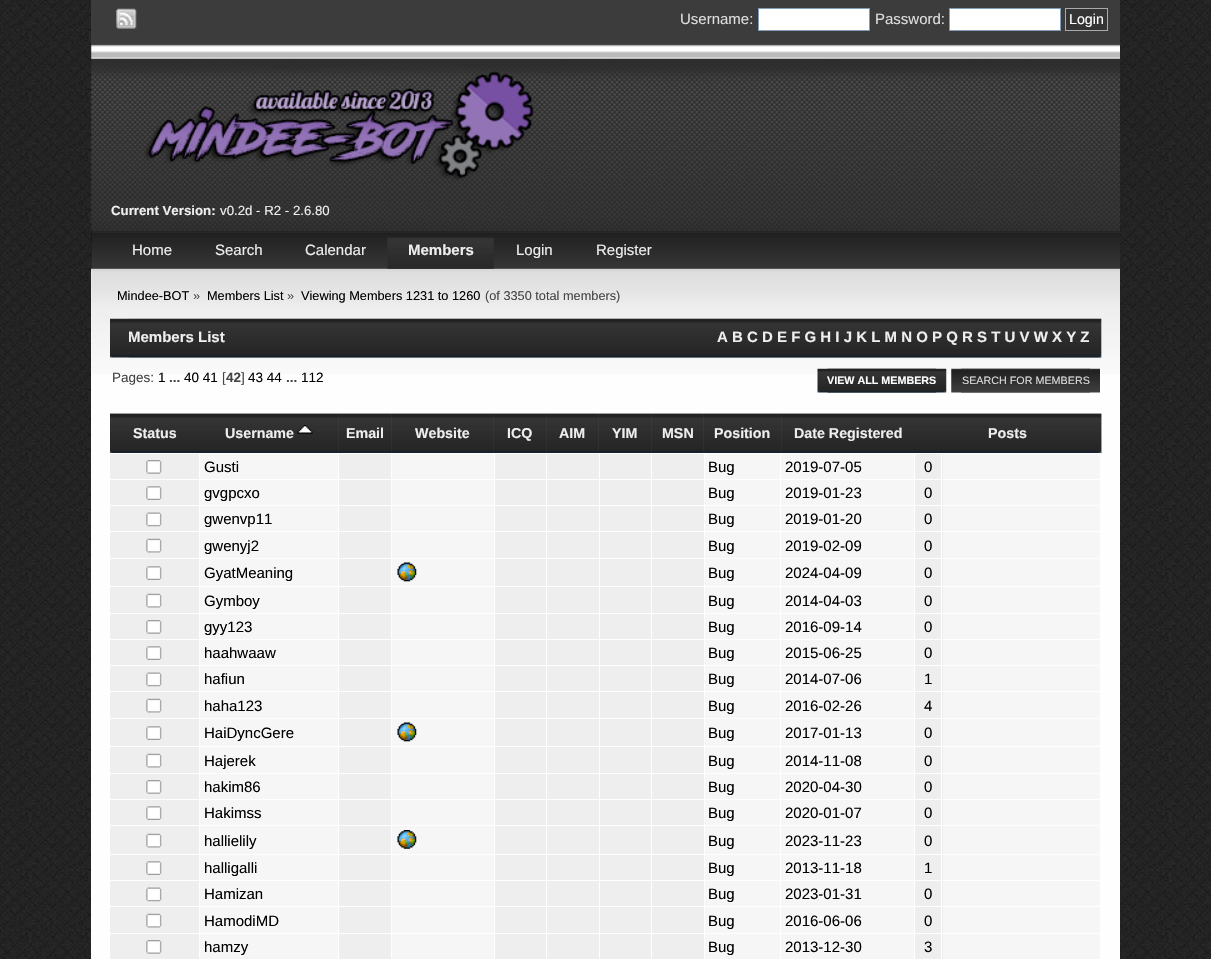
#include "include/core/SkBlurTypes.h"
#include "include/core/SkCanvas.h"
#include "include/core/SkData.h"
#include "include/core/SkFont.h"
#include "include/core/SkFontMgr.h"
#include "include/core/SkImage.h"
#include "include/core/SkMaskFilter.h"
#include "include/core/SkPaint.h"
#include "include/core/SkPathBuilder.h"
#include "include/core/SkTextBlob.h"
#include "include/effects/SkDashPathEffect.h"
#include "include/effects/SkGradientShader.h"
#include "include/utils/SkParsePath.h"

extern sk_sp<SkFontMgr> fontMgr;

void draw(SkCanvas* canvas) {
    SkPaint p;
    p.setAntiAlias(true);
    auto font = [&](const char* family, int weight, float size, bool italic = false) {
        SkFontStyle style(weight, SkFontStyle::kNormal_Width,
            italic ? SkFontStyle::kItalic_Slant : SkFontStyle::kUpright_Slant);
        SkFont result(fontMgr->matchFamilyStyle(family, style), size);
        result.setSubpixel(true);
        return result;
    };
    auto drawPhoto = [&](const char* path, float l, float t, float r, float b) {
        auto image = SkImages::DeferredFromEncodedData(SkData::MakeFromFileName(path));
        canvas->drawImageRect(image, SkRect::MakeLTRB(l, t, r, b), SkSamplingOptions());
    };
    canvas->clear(0xFFFFFFFF);
    drawPhoto("media/1.png", 0, 0, 1211, 959);
    p.setColor(0xFF3C3C3C);
    canvas->drawRect(SkRect::MakeLTRB(91, 0, 1120, 44), p);
    drawPhoto("media/2.png", 116, 8, 137, 29);
    auto font1 = font("Liberation Sans", 400, 15);
    p.setColor(0xFFDEDEDE);
    canvas->drawString("Username:", 680, 24, font1, p);
    p.setColor(0xFFFFFFFF);
    canvas->drawRect(SkRect::MakeLTRB(758.5f, 8.5f, 869.5f, 30.5f), p);
    p.setStyle(SkPaint::kStroke_Style);
    p.setStrokeWidth(1);
    p.setColor(0xFF7F9DB9);
    canvas->drawRect(SkRect::MakeLTRB(758.5f, 8.5f, 869.5f, 30.5f), p);
    p.setStyle(SkPaint::kFill_Style);
    p.setColor(0xFFDEDEDE);
    canvas->drawString("Password:", 875, 24, font1, p);
    p.setColor(0xFFFFFFFF);
    canvas->drawRect(SkRect::MakeLTRB(949.5f, 8.5f, 1060.5f, 30.5f), p);
    p.setStyle(SkPaint::kStroke_Style);
    p.setColor(0xFF7F9DB9);
    canvas->drawRect(SkRect::MakeLTRB(949.5f, 8.5f, 1060.5f, 30.5f), p);
    p.setStyle(SkPaint::kFill_Style);
    p.setColor(0xFF343434);
    canvas->drawRect(SkRect::MakeLTRB(1065.5f, 8.5f, 1107.5f, 30.5f), p);
    p.setStyle(SkPaint::kStroke_Style);
    p.setColor(0xFFAAAAAA);
    canvas->drawRect(SkRect::MakeLTRB(1065.5f, 8.5f, 1107.5f, 30.5f), p);
    auto font2 = font("Liberation Sans", 400, 14.25f);
    p.setStyle(SkPaint::kFill_Style);
    p.setColor(0xFFFFFFFF);
    canvas->drawString("Login", 1069, 24, font2, p);
    drawPhoto("media/3.png", 91, 44, 1120, 231);
    drawPhoto("media/4.png", 144, 71, 534, 180);
    auto font3 = font("Liberation Sans", 700, 13.25f);
    p.setColor(0xFFEEEEEE);
    canvas->drawString("Current Version:", 111, 215, font3, p);
    auto font4 = font("Liberation Sans", 400, 13.25f);
    canvas->drawString("v0.2d - R2 - 2.6.80", 220, 215, font4, p);
    p.setColor(0xFF000000);
    canvas->drawRect(SkRect::MakeLTRB(91, 231, 1120, 269), p);
    drawPhoto("media/5.png", 91, 231, 1120, 269);
    p.setColor(0xFFEEEEEE);
    {
        const struct { const char* s; float x, y; } items[] = {
            {"Home", 132, 255},
            {"Search", 215, 255},
            {"Calendar", 305, 255},
        };
        for (auto [s, x, y] : items) {
            canvas->drawString(s, x, y, font1, p);
        }
    }
    p.setColor(0xFFFEFEFE);
    canvas->drawRect(SkRect::MakeLTRB(91, 269, 1120, 959), p);
    drawPhoto("media/7.png", 91, 268, 1120, 374);
    drawPhoto("media/6.png", 387, 237, 494, 269);
    auto font5 = font("Liberation Sans", 700, 15);
    p.setColor(0xFFEEEEEE);
    canvas->drawString("Members", 408, 255, font5, p);
    canvas->drawString("Login", 516, 255, font1, p);
    canvas->drawString("Register", 596, 255, font1, p);
    auto font6 = font("Liberation Sans", 400, 12.75f);
    p.setColor(0xFF000000);
    canvas->drawString("Mindee-BOT", 117, 300, font6, p);
    p.setColor(0xFF444444);
    canvas->drawString("»", 193, 300, font6, p);
    p.setColor(0xFF000000);
    canvas->drawString("Members List", 207, 300, font6, p);
    p.setColor(0xFF444444);
    canvas->drawString("»", 287, 300, font6, p);
    p.setColor(0xFF000000);
    canvas->drawString("Viewing Members 1231 to 1260", 301, 300, font6, p);
    p.setColor(0xFF444444);
    canvas->drawString("(of 3350 total members)", 485, 300, font6, p);
    drawPhoto("media/8.png", 110, 318, 1102, 358);
    drawPhoto("media/9.png", 128, 318, 1102, 358);
    p.setColor(0xFFEEEEEE);
    canvas->drawString("Members List", 128, 342, font5, p);
    canvas->drawString("A B C D E F G H I J K L M N O P Q R S T U V W X Y Z", 717, 342, font5, p);
    auto font7 = font("Liberation Sans", 400, 13.5f);
    p.setColor(0xFF444444);
    canvas->drawString("Pages:", 112, 382, font7, p);
    p.setColor(0xFF000000);
    canvas->drawString("1", 158, 382, font7, p);
    auto font8 = font("Liberation Sans", 700, 13.5f);
    p.setColor(0xFF444444);
    canvas->drawString("...", 169, 382, font8, p);
    p.setColor(0xFF000000);
    canvas->drawString("40 41", 184, 382, font7, p);
    p.setColor(0xFF444444);
    canvas->drawString("[", 222, 382, font7, p);
    canvas->drawString("42", 226, 382, font8, p);
    canvas->drawString("]", 241, 382, font7, p);
    p.setColor(0xFF000000);
    canvas->drawString("43 44", 248, 382, font7, p);
    p.setColor(0xFF444444);
    canvas->drawString("...", 286, 382, font8, p);
    p.setColor(0xFF000000);
    canvas->drawString("112", 301, 382, font7, p);
    drawPhoto("media/10.png", 817, 368, 937, 393);
    drawPhoto("media/11.png", 827, 368, 947, 393);
    auto font9 = font("Liberation Sans", 700, 10.75f);
    p.setColor(0xFFFFFFFF);
    canvas->drawString("VIEW ALL MEMBERS", 827, 384, font9, p);
    drawPhoto("media/12.png", 951, 368, 1090, 393);
    drawPhoto("media/13.png", 961, 368, 1100, 393);
    auto font10 = font("Liberation Sans", 400, 10.75f);
    p.setColor(0xFFDEDEDE);
    canvas->drawString("SEARCH FOR MEMBERS", 962, 384, font10, p);
    drawPhoto("media/22.png", 915, 413, 1102, 454);
    p.setColor(0xFFFFFFFF);
    canvas->drawRect(SkRect::MakeLTRB(915, 453, 1101, 454), p);
    drawPhoto("media/14.png", 110, 413, 200, 453);
    auto font11 = font("Liberation Sans", 700, 14.25f);
    p.setColor(0xFFEEEEEE);
    canvas->drawString("Status", 133, 438, font11, p);
    drawPhoto("media/15.png", 200, 413, 339, 453);
    canvas->drawString("Username", 225, 438, font11, p);
    drawPhoto("media/16.png", 297, 425, 313, 434);
    drawPhoto("media/17.png", 338, 413, 392, 453);
    canvas->drawString("Email", 346, 438, font11, p);
    drawPhoto("media/18.png", 391, 413, 494, 453);
    canvas->drawString("Website", 415, 438, font11, p);
    drawPhoto("media/17.png", 493, 413, 547, 453);
    canvas->drawString("ICQ", 507, 438, font11, p);
    drawPhoto("media/19.png", 546, 413, 599, 453);
    canvas->drawString("AIM", 559, 438, font11, p);
    drawPhoto("media/17.png", 598, 413, 652, 453);
    canvas->drawString("YIM", 612, 438, font11, p);
    drawPhoto("media/19.png", 651, 413, 704, 453);
    canvas->drawString("MSN", 662, 438, font11, p);
    drawPhoto("media/20.png", 703, 413, 782, 453);
    canvas->drawString("Position", 714, 438, font11, p);
    drawPhoto("media/21.png", 781, 413, 915, 453);
    canvas->drawString("Date Registered", 794, 438, font11, p);
    canvas->drawString("Posts", 988, 438, font11, p);
    canvas->drawRect(SkRect::MakeLTRB(110, 454, 199, 479), p);
    drawPhoto("media/23.png", 146, 460, 162, 474);
    p.setColor(0xFFF6F6F6);
    canvas->drawRect(SkRect::MakeLTRB(200, 454, 338, 479), p);
    p.setColor(0xFF000000);
    canvas->drawString("Gusti", 204, 472, font1, p);
    {
        const struct { float l, t, r, b; SkColor color; } items[] = {
            {339, 454, 391, 479, 0xFFEEEEEE},
            {392, 454, 494, 479, 0xFFF6F6F6},
            {495, 454, 546, 479, 0xFFEEEEEE},
            {547, 454, 599, 479, 0xFFEEEEEE},
            {600, 454, 651, 479, 0xFFEEEEEE},
            {652, 454, 704, 479, 0xFFEEEEEE},
            {705, 454, 780, 479, 0xFFF6F6F6},
        };
        for (auto [l, t, r, b, color] : items) {
            p.setColor(color);
            canvas->drawRect(SkRect::MakeLTRB(l, t, r, b), p);
        }
    }
    p.setColor(0xFF000000);
    canvas->drawString("Bug", 708, 472, font1, p);
    p.setColor(0xFFF6F6F6);
    canvas->drawRect(SkRect::MakeLTRB(781, 454, 914, 479), p);
    p.setColor(0xFF000000);
    canvas->drawString("2019-07-05", 785, 472, font1, p);
    p.setColor(0xFFEEEEEE);
    canvas->drawRect(SkRect::MakeLTRB(915, 454, 943, 479), p);
    p.setColor(0xFF000000);
    canvas->drawString("0", 924, 472, font1, p);
    p.setColor(0xFFF6F6F6);
    canvas->drawRect(SkRect::MakeLTRB(943, 454, 1100, 479), p);
    p.setColor(0xFFEEEEEE);
    canvas->drawRect(SkRect::MakeLTRB(110, 480, 199, 505), p);
    drawPhoto("media/24.png", 146, 486, 162, 500);
    p.setColor(0xFFF6F6F6);
    canvas->drawRect(SkRect::MakeLTRB(200, 480, 338, 505), p);
    p.setColor(0xFF000000);
    canvas->drawString("gvgpcxo", 204, 498, font1, p);
    {
        const struct { float l, t, r, b; SkColor color; } items[] = {
            {339, 480, 391, 505, 0xFFEEEEEE},
            {392, 480, 494, 505, 0xFFF6F6F6},
            {495, 480, 546, 505, 0xFFEEEEEE},
            {547, 480, 599, 505, 0xFFEEEEEE},
            {600, 480, 651, 505, 0xFFEEEEEE},
            {652, 480, 704, 505, 0xFFEEEEEE},
            {705, 480, 780, 505, 0xFFF6F6F6},
        };
        for (auto [l, t, r, b, color] : items) {
            p.setColor(color);
            canvas->drawRect(SkRect::MakeLTRB(l, t, r, b), p);
        }
    }
    p.setColor(0xFF000000);
    canvas->drawString("Bug", 708, 498, font1, p);
    p.setColor(0xFFF6F6F6);
    canvas->drawRect(SkRect::MakeLTRB(781, 480, 914, 505), p);
    p.setColor(0xFF000000);
    canvas->drawString("2019-01-23", 785, 498, font1, p);
    p.setColor(0xFFEEEEEE);
    canvas->drawRect(SkRect::MakeLTRB(915, 480, 943, 505), p);
    p.setColor(0xFF000000);
    canvas->drawString("0", 924, 498, font1, p);
    p.setColor(0xFFF6F6F6);
    canvas->drawRect(SkRect::MakeLTRB(943, 480, 1100, 505), p);
    p.setColor(0xFFEEEEEE);
    canvas->drawRect(SkRect::MakeLTRB(110, 506, 199, 558), p);
    drawPhoto("media/25.png", 146, 512, 162, 527);
    p.setColor(0xFFF6F6F6);
    canvas->drawRect(SkRect::MakeLTRB(200, 506, 338, 558), p);
    p.setColor(0xFF000000);
    canvas->drawString("gwenvp11", 204, 524, font1, p);
    {
        const struct { float l, t, r, b; SkColor color; } items[] = {
            {339, 506, 391, 558, 0xFFEEEEEE},
            {392, 506, 494, 558, 0xFFF6F6F6},
            {495, 506, 546, 558, 0xFFEEEEEE},
            {547, 506, 599, 558, 0xFFEEEEEE},
            {600, 506, 651, 558, 0xFFEEEEEE},
            {652, 506, 704, 558, 0xFFEEEEEE},
            {705, 506, 780, 558, 0xFFF6F6F6},
        };
        for (auto [l, t, r, b, color] : items) {
            p.setColor(color);
            canvas->drawRect(SkRect::MakeLTRB(l, t, r, b), p);
        }
    }
    p.setColor(0xFF000000);
    canvas->drawString("Bug", 708, 524, font1, p);
    p.setColor(0xFFF6F6F6);
    canvas->drawRect(SkRect::MakeLTRB(781, 506, 914, 558), p);
    p.setColor(0xFF000000);
    canvas->drawString("2019-01-20", 785, 524, font1, p);
    {
        const struct { float l, t, r, b; SkColor color; } items[] = {
            {915, 506, 943, 558, 0xFFEEEEEE},
            {943, 506, 1100, 558, 0xFFF6F6F6},
            {915, 559, 943, 613, 0xFFEEEEEE},
            {943, 559, 1100, 613, 0xFFF6F6F6},
            {915, 614, 943, 639, 0xFFEEEEEE},
            {915, 640, 943, 665, 0xFFEEEEEE},
            {915, 666, 943, 718, 0xFFEEEEEE},
            {943, 666, 1100, 718, 0xFFF6F6F6},
            {915, 719, 943, 773, 0xFFEEEEEE},
            {943, 719, 1100, 773, 0xFFF6F6F6},
            {915, 774, 943, 799, 0xFFEEEEEE},
            {915, 800, 943, 825, 0xFFEEEEEE},
            {915, 826, 943, 854, 0xFFEEEEEE},
            {915, 855, 943, 880, 0xFFEEEEEE},
            {915, 881, 943, 933, 0xFFEEEEEE},
            {943, 881, 1100, 933, 0xFFF6F6F6},
            {915, 934, 943, 959, 0xFFEEEEEE},
            {941, 906, 942, 959, 0xFFFFFFFF},
            {941, 906, 1101, 907, 0xFFFFFFFF},
            {941, 746, 942, 908, 0xFFFFFFFF},
            {941, 746, 1101, 747, 0xFFFFFFFF},
            {941, 691, 942, 748, 0xFFFFFFFF},
            {941, 691, 1101, 692, 0xFFFFFFFF},
            {941, 586, 942, 693, 0xFFFFFFFF},
            {941, 586, 1101, 587, 0xFFFFFFFF},
            {941, 531, 942, 588, 0xFFFFFFFF},
            {941, 531, 1101, 532, 0xFFFFFFFF},
            {941, 453, 942, 533, 0xFFFFFFFF},
            {109, 531, 943, 532, 0xFFFFFFFF},
        };
        for (auto [l, t, r, b, color] : items) {
            p.setColor(color);
            canvas->drawRect(SkRect::MakeLTRB(l, t, r, b), p);
        }
    }
    p.setColor(0xFF000000);
    canvas->drawString("0", 924, 524, font1, p);
    drawPhoto("media/26.png", 146, 538, 162, 553);
    {
        const struct { const char* s; float x, y; } items[] = {
            {"gwenyj2", 204, 551},
            {"Bug", 708, 551},
            {"2019-02-09", 785, 551},
            {"0", 924, 551},
        };
        for (auto [s, x, y] : items) {
            canvas->drawString(s, x, y, font1, p);
        }
    }
    p.setColor(0xFFEEEEEE);
    canvas->drawRect(SkRect::MakeLTRB(110, 559, 199, 613), p);
    drawPhoto("media/24.png", 146, 566, 162, 580);
    p.setColor(0xFFF6F6F6);
    canvas->drawRect(SkRect::MakeLTRB(200, 559, 338, 613), p);
    p.setColor(0xFF000000);
    canvas->drawString("GyatMeaning", 204, 578, font1, p);
    p.setColor(0xFFEEEEEE);
    canvas->drawRect(SkRect::MakeLTRB(339, 559, 391, 613), p);
    p.setColor(0xFFF6F6F6);
    canvas->drawRect(SkRect::MakeLTRB(392, 559, 494, 613), p);
    drawPhoto("media/27.png", 397, 562, 417, 582);
    {
        const struct { float l, t, r, b; SkColor color; } items[] = {
            {495, 559, 546, 613, 0xFFEEEEEE},
            {547, 559, 599, 613, 0xFFEEEEEE},
            {600, 559, 651, 613, 0xFFEEEEEE},
            {652, 559, 704, 613, 0xFFEEEEEE},
            {705, 559, 780, 613, 0xFFF6F6F6},
        };
        for (auto [l, t, r, b, color] : items) {
            p.setColor(color);
            canvas->drawRect(SkRect::MakeLTRB(l, t, r, b), p);
        }
    }
    p.setColor(0xFF000000);
    canvas->drawString("Bug", 708, 578, font1, p);
    p.setColor(0xFFF6F6F6);
    canvas->drawRect(SkRect::MakeLTRB(781, 559, 914, 613), p);
    p.setColor(0xFF000000);
    canvas->drawString("2024-04-09", 785, 578, font1, p);
    p.setColor(0xFFFFFFFF);
    canvas->drawRect(SkRect::MakeLTRB(109, 586, 943, 587), p);
    p.setColor(0xFF000000);
    canvas->drawString("0", 924, 578, font1, p);
    drawPhoto("media/26.png", 146, 593, 162, 608);
    {
        const struct { const char* s; float x, y; } items[] = {
            {"Gymboy", 204, 606},
            {"Bug", 708, 606},
            {"2014-04-03", 785, 606},
            {"0", 924, 606},
        };
        for (auto [s, x, y] : items) {
            canvas->drawString(s, x, y, font1, p);
        }
    }
    p.setColor(0xFFEEEEEE);
    canvas->drawRect(SkRect::MakeLTRB(110, 614, 199, 639), p);
    drawPhoto("media/23.png", 146, 620, 162, 634);
    p.setColor(0xFFF6F6F6);
    canvas->drawRect(SkRect::MakeLTRB(200, 614, 338, 639), p);
    p.setColor(0xFF000000);
    canvas->drawString("gyy123", 204, 632, font1, p);
    {
        const struct { float l, t, r, b; SkColor color; } items[] = {
            {339, 614, 391, 639, 0xFFEEEEEE},
            {392, 614, 494, 639, 0xFFF6F6F6},
            {495, 614, 546, 639, 0xFFEEEEEE},
            {547, 614, 599, 639, 0xFFEEEEEE},
            {600, 614, 651, 639, 0xFFEEEEEE},
            {652, 614, 704, 639, 0xFFEEEEEE},
            {705, 614, 780, 639, 0xFFF6F6F6},
        };
        for (auto [l, t, r, b, color] : items) {
            p.setColor(color);
            canvas->drawRect(SkRect::MakeLTRB(l, t, r, b), p);
        }
    }
    p.setColor(0xFF000000);
    canvas->drawString("Bug", 708, 632, font1, p);
    p.setColor(0xFFF6F6F6);
    canvas->drawRect(SkRect::MakeLTRB(781, 614, 914, 639), p);
    p.setColor(0xFF000000);
    canvas->drawString("2016-09-14", 785, 632, font1, p);
    canvas->drawString("0", 924, 632, font1, p);
    p.setColor(0xFFF6F6F6);
    canvas->drawRect(SkRect::MakeLTRB(943, 614, 1100, 639), p);
    p.setColor(0xFFEEEEEE);
    canvas->drawRect(SkRect::MakeLTRB(110, 640, 199, 665), p);
    drawPhoto("media/24.png", 146, 646, 162, 660);
    p.setColor(0xFFF6F6F6);
    canvas->drawRect(SkRect::MakeLTRB(200, 640, 338, 665), p);
    p.setColor(0xFF000000);
    canvas->drawString("haahwaaw", 204, 658, font1, p);
    {
        const struct { float l, t, r, b; SkColor color; } items[] = {
            {339, 640, 391, 665, 0xFFEEEEEE},
            {392, 640, 494, 665, 0xFFF6F6F6},
            {495, 640, 546, 665, 0xFFEEEEEE},
            {547, 640, 599, 665, 0xFFEEEEEE},
            {600, 640, 651, 665, 0xFFEEEEEE},
            {652, 640, 704, 665, 0xFFEEEEEE},
            {705, 640, 780, 665, 0xFFF6F6F6},
        };
        for (auto [l, t, r, b, color] : items) {
            p.setColor(color);
            canvas->drawRect(SkRect::MakeLTRB(l, t, r, b), p);
        }
    }
    p.setColor(0xFF000000);
    canvas->drawString("Bug", 708, 658, font1, p);
    p.setColor(0xFFF6F6F6);
    canvas->drawRect(SkRect::MakeLTRB(781, 640, 914, 665), p);
    p.setColor(0xFF000000);
    canvas->drawString("2015-06-25", 785, 658, font1, p);
    canvas->drawString("0", 924, 658, font1, p);
    p.setColor(0xFFF6F6F6);
    canvas->drawRect(SkRect::MakeLTRB(943, 640, 1100, 665), p);
    p.setColor(0xFFEEEEEE);
    canvas->drawRect(SkRect::MakeLTRB(110, 666, 199, 718), p);
    drawPhoto("media/25.png", 146, 672, 162, 687);
    p.setColor(0xFFF6F6F6);
    canvas->drawRect(SkRect::MakeLTRB(200, 666, 338, 718), p);
    p.setColor(0xFF000000);
    canvas->drawString("hafiun", 204, 684, font1, p);
    {
        const struct { float l, t, r, b; SkColor color; } items[] = {
            {339, 666, 391, 718, 0xFFEEEEEE},
            {392, 666, 494, 718, 0xFFF6F6F6},
            {495, 666, 546, 718, 0xFFEEEEEE},
            {547, 666, 599, 718, 0xFFEEEEEE},
            {600, 666, 651, 718, 0xFFEEEEEE},
            {652, 666, 704, 718, 0xFFEEEEEE},
            {705, 666, 780, 718, 0xFFF6F6F6},
        };
        for (auto [l, t, r, b, color] : items) {
            p.setColor(color);
            canvas->drawRect(SkRect::MakeLTRB(l, t, r, b), p);
        }
    }
    p.setColor(0xFF000000);
    canvas->drawString("Bug", 708, 684, font1, p);
    p.setColor(0xFFF6F6F6);
    canvas->drawRect(SkRect::MakeLTRB(781, 666, 914, 718), p);
    p.setColor(0xFF000000);
    canvas->drawString("2014-07-06", 785, 684, font1, p);
    p.setColor(0xFFFFFFFF);
    canvas->drawRect(SkRect::MakeLTRB(109, 691, 943, 692), p);
    p.setColor(0xFF000000);
    canvas->drawString("1", 924, 684, font1, p);
    drawPhoto("media/26.png", 146, 698, 162, 713);
    {
        const struct { const char* s; float x, y; } items[] = {
            {"haha123", 204, 711},
            {"Bug", 708, 711},
            {"2016-02-26", 785, 711},
            {"4", 924, 711},
        };
        for (auto [s, x, y] : items) {
            canvas->drawString(s, x, y, font1, p);
        }
    }
    p.setColor(0xFFEEEEEE);
    canvas->drawRect(SkRect::MakeLTRB(110, 719, 199, 773), p);
    drawPhoto("media/24.png", 146, 726, 162, 740);
    p.setColor(0xFFF6F6F6);
    canvas->drawRect(SkRect::MakeLTRB(200, 719, 338, 773), p);
    p.setColor(0xFF000000);
    canvas->drawString("HaiDyncGere", 204, 738, font1, p);
    p.setColor(0xFFEEEEEE);
    canvas->drawRect(SkRect::MakeLTRB(339, 719, 391, 773), p);
    p.setColor(0xFFF6F6F6);
    canvas->drawRect(SkRect::MakeLTRB(392, 719, 494, 773), p);
    drawPhoto("media/27.png", 397, 722, 417, 742);
    {
        const struct { float l, t, r, b; SkColor color; } items[] = {
            {495, 719, 546, 773, 0xFFEEEEEE},
            {547, 719, 599, 773, 0xFFEEEEEE},
            {600, 719, 651, 773, 0xFFEEEEEE},
            {652, 719, 704, 773, 0xFFEEEEEE},
            {705, 719, 780, 773, 0xFFF6F6F6},
        };
        for (auto [l, t, r, b, color] : items) {
            p.setColor(color);
            canvas->drawRect(SkRect::MakeLTRB(l, t, r, b), p);
        }
    }
    p.setColor(0xFF000000);
    canvas->drawString("Bug", 708, 738, font1, p);
    p.setColor(0xFFF6F6F6);
    canvas->drawRect(SkRect::MakeLTRB(781, 719, 914, 773), p);
    p.setColor(0xFF000000);
    canvas->drawString("2017-01-13", 785, 738, font1, p);
    p.setColor(0xFFFFFFFF);
    canvas->drawRect(SkRect::MakeLTRB(109, 746, 943, 747), p);
    p.setColor(0xFF000000);
    canvas->drawString("0", 924, 738, font1, p);
    drawPhoto("media/26.png", 146, 753, 162, 768);
    {
        const struct { const char* s; float x, y; } items[] = {
            {"Hajerek", 204, 766},
            {"Bug", 708, 766},
            {"2014-11-08", 785, 766},
            {"0", 924, 766},
        };
        for (auto [s, x, y] : items) {
            canvas->drawString(s, x, y, font1, p);
        }
    }
    p.setColor(0xFFEEEEEE);
    canvas->drawRect(SkRect::MakeLTRB(110, 774, 199, 799), p);
    drawPhoto("media/28.png", 146, 780, 162, 794);
    p.setColor(0xFFF6F6F6);
    canvas->drawRect(SkRect::MakeLTRB(200, 774, 338, 799), p);
    p.setColor(0xFF000000);
    canvas->drawString("hakim86", 204, 792, font1, p);
    {
        const struct { float l, t, r, b; SkColor color; } items[] = {
            {339, 774, 391, 799, 0xFFEEEEEE},
            {392, 774, 494, 799, 0xFFF6F6F6},
            {495, 774, 546, 799, 0xFFEEEEEE},
            {547, 774, 599, 799, 0xFFEEEEEE},
            {600, 774, 651, 799, 0xFFEEEEEE},
            {652, 774, 704, 799, 0xFFEEEEEE},
            {705, 774, 780, 799, 0xFFF6F6F6},
        };
        for (auto [l, t, r, b, color] : items) {
            p.setColor(color);
            canvas->drawRect(SkRect::MakeLTRB(l, t, r, b), p);
        }
    }
    p.setColor(0xFF000000);
    canvas->drawString("Bug", 708, 792, font1, p);
    p.setColor(0xFFF6F6F6);
    canvas->drawRect(SkRect::MakeLTRB(781, 774, 914, 799), p);
    p.setColor(0xFF000000);
    canvas->drawString("2020-04-30", 785, 792, font1, p);
    canvas->drawString("0", 924, 792, font1, p);
    p.setColor(0xFFF6F6F6);
    canvas->drawRect(SkRect::MakeLTRB(943, 774, 1100, 799), p);
    p.setColor(0xFFEEEEEE);
    canvas->drawRect(SkRect::MakeLTRB(110, 800, 199, 825), p);
    drawPhoto("media/24.png", 146, 806, 162, 820);
    p.setColor(0xFFF6F6F6);
    canvas->drawRect(SkRect::MakeLTRB(200, 800, 338, 825), p);
    p.setColor(0xFF000000);
    canvas->drawString("Hakimss", 204, 818, font1, p);
    {
        const struct { float l, t, r, b; SkColor color; } items[] = {
            {339, 800, 391, 825, 0xFFEEEEEE},
            {392, 800, 494, 825, 0xFFF6F6F6},
            {495, 800, 546, 825, 0xFFEEEEEE},
            {547, 800, 599, 825, 0xFFEEEEEE},
            {600, 800, 651, 825, 0xFFEEEEEE},
            {652, 800, 704, 825, 0xFFEEEEEE},
            {705, 800, 780, 825, 0xFFF6F6F6},
        };
        for (auto [l, t, r, b, color] : items) {
            p.setColor(color);
            canvas->drawRect(SkRect::MakeLTRB(l, t, r, b), p);
        }
    }
    p.setColor(0xFF000000);
    canvas->drawString("Bug", 708, 818, font1, p);
    p.setColor(0xFFF6F6F6);
    canvas->drawRect(SkRect::MakeLTRB(781, 800, 914, 825), p);
    p.setColor(0xFF000000);
    canvas->drawString("2020-01-07", 785, 818, font1, p);
    canvas->drawString("0", 924, 818, font1, p);
    p.setColor(0xFFF6F6F6);
    canvas->drawRect(SkRect::MakeLTRB(943, 800, 1100, 825), p);
    p.setColor(0xFFEEEEEE);
    canvas->drawRect(SkRect::MakeLTRB(110, 826, 199, 854), p);
    drawPhoto("media/26.png", 146, 833, 162, 848);
    p.setColor(0xFFF6F6F6);
    canvas->drawRect(SkRect::MakeLTRB(200, 826, 338, 854), p);
    p.setColor(0xFF000000);
    canvas->drawString("hallielily", 204, 846, font1, p);
    p.setColor(0xFFEEEEEE);
    canvas->drawRect(SkRect::MakeLTRB(339, 826, 391, 854), p);
    p.setColor(0xFFF6F6F6);
    canvas->drawRect(SkRect::MakeLTRB(392, 826, 494, 854), p);
    drawPhoto("media/29.png", 397, 830, 417, 849);
    {
        const struct { float l, t, r, b; SkColor color; } items[] = {
            {495, 826, 546, 854, 0xFFEEEEEE},
            {547, 826, 599, 854, 0xFFEEEEEE},
            {600, 826, 651, 854, 0xFFEEEEEE},
            {652, 826, 704, 854, 0xFFEEEEEE},
            {705, 826, 780, 854, 0xFFF6F6F6},
        };
        for (auto [l, t, r, b, color] : items) {
            p.setColor(color);
            canvas->drawRect(SkRect::MakeLTRB(l, t, r, b), p);
        }
    }
    p.setColor(0xFF000000);
    canvas->drawString("Bug", 708, 846, font1, p);
    p.setColor(0xFFF6F6F6);
    canvas->drawRect(SkRect::MakeLTRB(781, 826, 914, 854), p);
    p.setColor(0xFF000000);
    canvas->drawString("2023-11-23", 785, 846, font1, p);
    canvas->drawString("0", 924, 846, font1, p);
    p.setColor(0xFFF6F6F6);
    canvas->drawRect(SkRect::MakeLTRB(943, 826, 1100, 854), p);
    p.setColor(0xFFEEEEEE);
    canvas->drawRect(SkRect::MakeLTRB(110, 855, 199, 880), p);
    drawPhoto("media/24.png", 146, 861, 162, 875);
    p.setColor(0xFFF6F6F6);
    canvas->drawRect(SkRect::MakeLTRB(200, 855, 338, 880), p);
    p.setColor(0xFF000000);
    canvas->drawString("halligalli", 204, 873, font1, p);
    {
        const struct { float l, t, r, b; SkColor color; } items[] = {
            {339, 855, 391, 880, 0xFFEEEEEE},
            {392, 855, 494, 880, 0xFFF6F6F6},
            {495, 855, 546, 880, 0xFFEEEEEE},
            {547, 855, 599, 880, 0xFFEEEEEE},
            {600, 855, 651, 880, 0xFFEEEEEE},
            {652, 855, 704, 880, 0xFFEEEEEE},
            {705, 855, 780, 880, 0xFFF6F6F6},
        };
        for (auto [l, t, r, b, color] : items) {
            p.setColor(color);
            canvas->drawRect(SkRect::MakeLTRB(l, t, r, b), p);
        }
    }
    p.setColor(0xFF000000);
    canvas->drawString("Bug", 708, 873, font1, p);
    p.setColor(0xFFF6F6F6);
    canvas->drawRect(SkRect::MakeLTRB(781, 855, 914, 880), p);
    p.setColor(0xFF000000);
    canvas->drawString("2013-11-18", 785, 873, font1, p);
    canvas->drawString("1", 924, 873, font1, p);
    p.setColor(0xFFF6F6F6);
    canvas->drawRect(SkRect::MakeLTRB(943, 855, 1100, 880), p);
    p.setColor(0xFFEEEEEE);
    canvas->drawRect(SkRect::MakeLTRB(110, 881, 199, 933), p);
    drawPhoto("media/25.png", 146, 887, 162, 902);
    p.setColor(0xFFF6F6F6);
    canvas->drawRect(SkRect::MakeLTRB(200, 881, 338, 933), p);
    p.setColor(0xFF000000);
    canvas->drawString("Hamizan", 204, 899, font1, p);
    {
        const struct { float l, t, r, b; SkColor color; } items[] = {
            {339, 881, 391, 933, 0xFFEEEEEE},
            {392, 881, 494, 933, 0xFFF6F6F6},
            {495, 881, 546, 933, 0xFFEEEEEE},
            {547, 881, 599, 933, 0xFFEEEEEE},
            {600, 881, 651, 933, 0xFFEEEEEE},
            {652, 881, 704, 933, 0xFFEEEEEE},
            {705, 881, 780, 933, 0xFFF6F6F6},
        };
        for (auto [l, t, r, b, color] : items) {
            p.setColor(color);
            canvas->drawRect(SkRect::MakeLTRB(l, t, r, b), p);
        }
    }
    p.setColor(0xFF000000);
    canvas->drawString("Bug", 708, 899, font1, p);
    p.setColor(0xFFF6F6F6);
    canvas->drawRect(SkRect::MakeLTRB(781, 881, 914, 933), p);
    p.setColor(0xFF000000);
    canvas->drawString("2023-01-31", 785, 899, font1, p);
    p.setColor(0xFFFFFFFF);
    canvas->drawRect(SkRect::MakeLTRB(109, 906, 943, 907), p);
    p.setColor(0xFF000000);
    canvas->drawString("0", 924, 899, font1, p);
    drawPhoto("media/26.png", 146, 913, 162, 928);
    {
        const struct { const char* s; float x, y; } items[] = {
            {"HamodiMD", 204, 926},
            {"Bug", 708, 926},
            {"2016-06-06", 785, 926},
            {"0", 924, 926},
        };
        for (auto [s, x, y] : items) {
            canvas->drawString(s, x, y, font1, p);
        }
    }
    p.setColor(0xFFEEEEEE);
    canvas->drawRect(SkRect::MakeLTRB(110, 934, 199, 959), p);
    drawPhoto("media/23.png", 146, 940, 162, 954);
    p.setColor(0xFFF6F6F6);
    canvas->drawRect(SkRect::MakeLTRB(200, 934, 338, 959), p);
    p.setColor(0xFF000000);
    canvas->drawString("hamzy", 204, 952, font1, p);
    {
        const struct { float l, t, r, b; SkColor color; } items[] = {
            {339, 934, 391, 959, 0xFFEEEEEE},
            {392, 934, 494, 959, 0xFFF6F6F6},
            {495, 934, 546, 959, 0xFFEEEEEE},
            {547, 934, 599, 959, 0xFFEEEEEE},
            {600, 934, 651, 959, 0xFFEEEEEE},
            {652, 934, 704, 959, 0xFFEEEEEE},
            {705, 934, 780, 959, 0xFFF6F6F6},
        };
        for (auto [l, t, r, b, color] : items) {
            p.setColor(color);
            canvas->drawRect(SkRect::MakeLTRB(l, t, r, b), p);
        }
    }
    p.setColor(0xFF000000);
    canvas->drawString("Bug", 708, 952, font1, p);
    p.setColor(0xFFF6F6F6);
    canvas->drawRect(SkRect::MakeLTRB(781, 934, 914, 959), p);
    p.setColor(0xFF000000);
    canvas->drawString("2013-12-30", 785, 952, font1, p);
    canvas->drawString("3", 924, 952, font1, p);
    p.setColor(0xFFF6F6F6);
    canvas->drawRect(SkRect::MakeLTRB(943, 934, 1100, 959), p);
}
